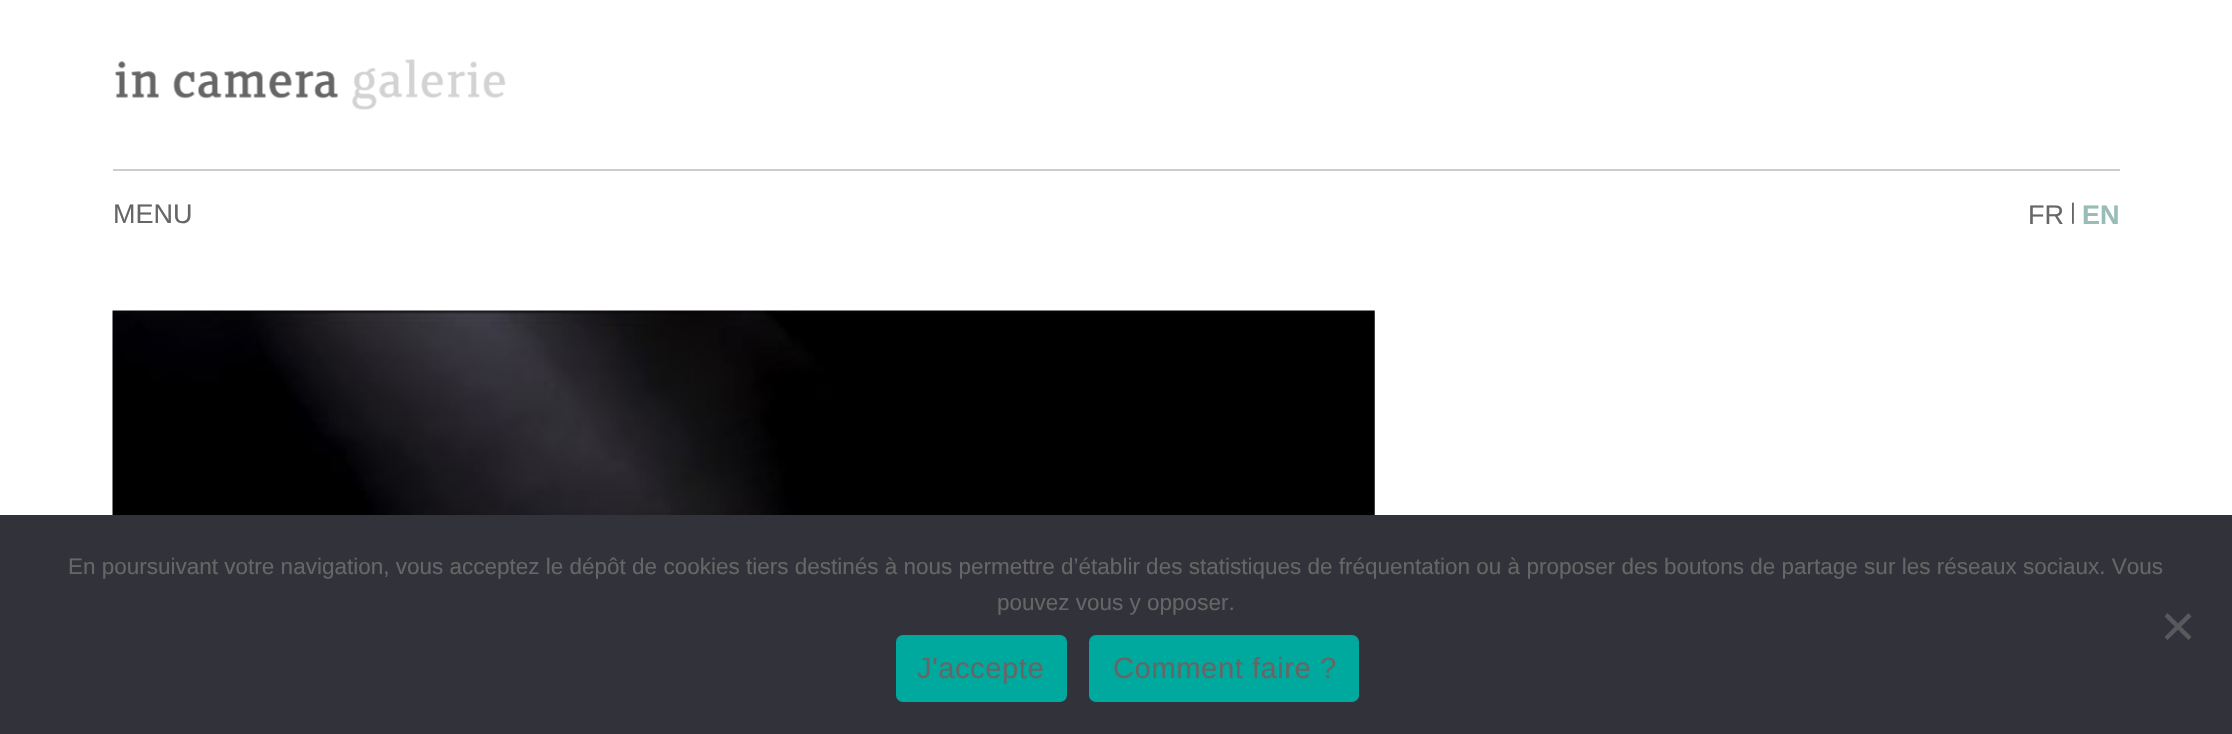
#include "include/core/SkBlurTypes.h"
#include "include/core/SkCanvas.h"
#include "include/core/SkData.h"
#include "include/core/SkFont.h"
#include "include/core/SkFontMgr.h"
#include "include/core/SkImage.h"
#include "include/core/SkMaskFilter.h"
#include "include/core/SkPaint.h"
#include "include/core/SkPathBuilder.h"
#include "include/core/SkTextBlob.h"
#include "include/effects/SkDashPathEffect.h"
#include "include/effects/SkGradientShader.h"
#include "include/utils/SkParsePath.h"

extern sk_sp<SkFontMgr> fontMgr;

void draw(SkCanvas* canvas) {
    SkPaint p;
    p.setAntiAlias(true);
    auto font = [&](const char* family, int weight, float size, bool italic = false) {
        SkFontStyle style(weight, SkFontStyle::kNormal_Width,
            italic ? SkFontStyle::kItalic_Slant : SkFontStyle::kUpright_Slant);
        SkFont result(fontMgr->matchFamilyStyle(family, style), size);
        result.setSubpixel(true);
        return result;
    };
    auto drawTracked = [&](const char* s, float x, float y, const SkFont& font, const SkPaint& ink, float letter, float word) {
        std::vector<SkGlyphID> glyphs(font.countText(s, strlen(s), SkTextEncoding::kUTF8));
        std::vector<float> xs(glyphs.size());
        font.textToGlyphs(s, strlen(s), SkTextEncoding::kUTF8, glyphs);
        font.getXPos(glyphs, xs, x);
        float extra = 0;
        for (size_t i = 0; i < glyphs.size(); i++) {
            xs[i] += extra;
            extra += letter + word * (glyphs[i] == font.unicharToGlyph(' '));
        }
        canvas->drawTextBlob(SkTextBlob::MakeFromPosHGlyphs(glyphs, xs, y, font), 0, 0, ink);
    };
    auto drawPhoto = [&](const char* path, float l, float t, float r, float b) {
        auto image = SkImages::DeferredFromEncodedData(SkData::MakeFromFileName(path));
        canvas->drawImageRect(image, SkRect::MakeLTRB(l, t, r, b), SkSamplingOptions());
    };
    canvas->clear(0xFFFFFFFF);
    p.setColor(0xFFCDCDCD);
    canvas->drawRect(SkRect::MakeLTRB(113, 169, 2120, 171), p);
    drawPhoto("media/1.png", 115, 59, 506, 110);
    auto font1 = font("Liberation Sans", 400, 27);
    p.setColor(0xFF666666);
    canvas->drawString("MENU", 113, 223, font1, p);
    canvas->drawString("FR", 2028, 224, font1, p);
    auto font2 = font("Liberation Sans", 400, 22.5f);
    canvas->drawString("|", 2070, 219, font2, p);
    auto font3 = font("Liberation Sans", 700, 27);
    p.setColor(0xFF9ABCB7);
    canvas->drawString("EN", 2082, 224, font3, p);
    drawPhoto("media/2.png", 112, 310, 1375, 515);
    p.setColor(0xFF32323A);
    canvas->drawRect(SkRect::MakeLTRB(0, 515, 2232, 734), p);
    p.setColor(0xFF666666);
    canvas->drawString("En poursuivant votre navigation, vous acceptez le dépôt de cookies tiers destinés à nous permettre d’établir des statistiques de fréquentation ou à proposer des boutons de partage sur les réseaux sociaux. Vous", 68, 574, font2, p);
    canvas->drawString("pouvez vous y opposer.", 997, 610, font2, p);
    p.setColor(0xFF59595D);
    canvas->drawPath(SkPathBuilder().moveTo(2188.5f, 613).lineTo(2191.5f, 616.5f).lineTo(2167.5f, 640).lineTo(2164.5f, 637).close().detach(), p);
    canvas->drawPath(SkPathBuilder().moveTo(2164.5f, 616.5f).lineTo(2167.5f, 613).lineTo(2191.5f, 637).lineTo(2188.5f, 640).close().detach(), p);
    p.setColor(0xFF00A99D);
    canvas->drawRoundRect(SkRect::MakeLTRB(896, 635, 1067, 702), 7, 7, p);
    auto font4 = font("Liberation Sans", 400, 29.25f);
    p.setColor(0xFF666666);
    drawTracked("J'accepte", 917, 678, font4, p, 0.5f, 0);
    p.setColor(0xFF00A99D);
    canvas->drawRoundRect(SkRect::MakeLTRB(1089, 635, 1359, 702), 7, 7, p);
    p.setColor(0xFF666666);
    drawTracked("Comment faire ?", 1113, 678, font4, p, 0.5f, 0);
}
